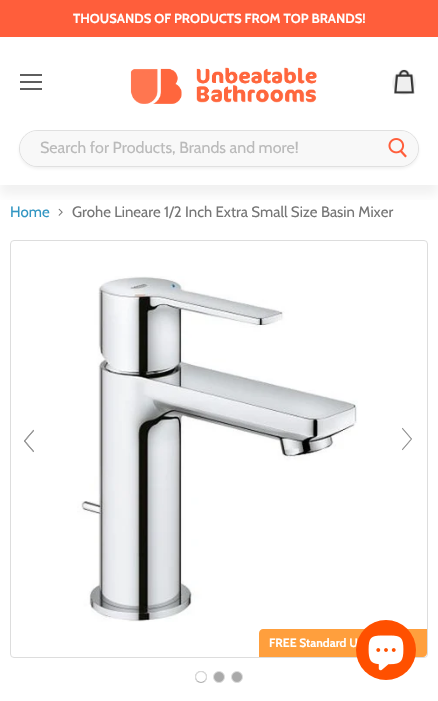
#include "include/core/SkBlurTypes.h"
#include "include/core/SkCanvas.h"
#include "include/core/SkData.h"
#include "include/core/SkFont.h"
#include "include/core/SkFontMgr.h"
#include "include/core/SkImage.h"
#include "include/core/SkMaskFilter.h"
#include "include/core/SkPaint.h"
#include "include/core/SkPathBuilder.h"
#include "include/core/SkTextBlob.h"
#include "include/effects/SkDashPathEffect.h"
#include "include/effects/SkGradientShader.h"
#include "include/utils/SkParsePath.h"

extern sk_sp<SkFontMgr> fontMgr;

void draw(SkCanvas* canvas) {
    SkPaint p;
    p.setAntiAlias(true);
    auto font = [&](const char* family, int weight, float size, bool italic = false) {
        SkFontStyle style(weight, SkFontStyle::kNormal_Width,
            italic ? SkFontStyle::kItalic_Slant : SkFontStyle::kUpright_Slant);
        SkFont result(fontMgr->matchFamilyStyle(family, style), size);
        result.setSubpixel(true);
        return result;
    };
    auto drawPhoto = [&](const char* path, float l, float t, float r, float b) {
        auto image = SkImages::DeferredFromEncodedData(SkData::MakeFromFileName(path));
        canvas->drawImageRect(image, SkRect::MakeLTRB(l, t, r, b), SkSamplingOptions());
    };
    canvas->clear(0xFFFFFFFF);
    p.setColor(0xFFFF5E3B);
    canvas->drawRect(SkRect::MakeLTRB(0, 0, 438, 37), p);
    auto font1 = font("Cabin", 700, 13.1f);
    p.setColor(0xFFFFFFFF);
    canvas->drawString("THOUSANDS OF PRODUCTS FROM TOP BRANDS!", 73, 23, font1, p);
    drawPhoto("media/4.png", 58, 208, 63, 216);
    canvas->save();
    canvas->clipRect(SkRect::MakeLTRB(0, 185, 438, 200));
    p.setColor(0x1C808080);
    p.setMaskFilter(SkMaskFilter::MakeBlur(kNormal_SkBlurStyle, 5));
    canvas->drawRect(SkRect::MakeLTRB(0, 47, 438, 195), p);
    p.setMaskFilter(nullptr);
    canvas->restore();
    {
        const struct { float l, t, r, b; SkColor color; } items[] = {
            {20, 74, 42, 76, 0xFF5E5E5E},
            {20, 81, 42, 83, 0xFF5E5E5E},
            {20, 88, 42, 90, 0xFF5E5E5E},
        };
        for (auto [l, t, r, b, color] : items) {
            p.setColor(color);
            canvas->drawRect(SkRect::MakeLTRB(l, t, r, b), p);
        }
    }
    drawPhoto("media/1.png", 130, 67, 317, 104);
    drawPhoto("media/2.png", 392, 69, 416, 95);
    p.setColor(0x1C808080);
    p.setMaskFilter(SkMaskFilter::MakeBlur(kNormal_SkBlurStyle, 1.5f));
    canvas->drawRoundRect(SkRect::MakeLTRB(19, 132, 419, 169), 18.5f, 18.5f, p);
    p.setMaskFilter(nullptr);
    p.setColor(0xFFF8F8F8);
    canvas->drawRoundRect(SkRect::MakeLTRB(19, 130, 419, 167), 18.5f, 18.5f, p);
    p.setStyle(SkPaint::kStroke_Style);
    p.setStrokeWidth(1);
    p.setColor(0x33808080);
    canvas->drawRoundRect(SkRect::MakeLTRB(19.5f, 130.5f, 418.5f, 166.5f), 18, 18, p);
    p.setStyle(SkPaint::kFill_Style);
    p.setColor(0xFFF8F8F8);
    canvas->drawRoundRect(SkRect::MakeLTRB(20, 131, 378, 166), 17.5f, 17.5f, p);
    auto font2 = font("Cabin", 400, 16);
    p.setColor(0xFFBABABA);
    canvas->drawString("Search for Products, Brands and more!", 40, 153, font2, p);
    p.setColor(0xFFF8F8F8);
    canvas->drawRoundRect(SkRect::MakeLTRB(378, 131, 418, 166), 17.5f, 17.5f, p);
    drawPhoto("media/3.png", 388, 138, 407, 158);
    auto font3 = font("Cabin", 400, 15);
    p.setColor(0xFF3296C2);
    canvas->drawString("Home", 10, 217, font3, p);
    p.setColor(0xFF767676);
    canvas->drawString("Grohe Lineare 1/2 Inch Extra Small Size Basin Mixer", 72, 217, font3, p);
    p.setStyle(SkPaint::kStroke_Style);
    p.setColor(0xFFDDDDDD);
    canvas->drawRoundRect(SkRect::MakeLTRB(10.5f, 240.5f, 427.5f, 657.5f), 3.5f, 3.5f, p);
    drawPhoto("media/5.png", 24, 429, 34, 453);
    drawPhoto("media/6.png", 24, 429, 34, 452);
    drawPhoto("media/7.png", 77, 276, 358, 622);
    drawPhoto("media/8.png", 402, 427, 412, 451);
    p.setStyle(SkPaint::kFill_Style);
    p.setColor(0xFFFF9F3D);
    canvas->drawPath(SkPathBuilder().moveTo(263, 629).lineTo(427, 629).lineTo(427, 653).cubicTo(427, 655, 425, 657, 423, 657).lineTo(259, 657).lineTo(259, 633).cubicTo(259, 631, 261, 629, 263, 629).close().detach(), p);
    auto font4 = font("Cabin", 700, 12);
    p.setColor(0xFFFFFFFF);
    canvas->drawString("FREE Standard U", 269, 647, font4, p);
    p.setColor(0xFFAAAAAA);
    canvas->drawCircle(201, 677, 6, p);
    p.setColor(0xFFDDDDDD);
    canvas->drawPath(SkPathBuilder(SkPathFillType::kEvenOdd).moveTo(201, 671).cubicTo(209, 671, 209, 683, 201, 683).cubicTo(193, 683, 193, 671, 201, 671).close().moveTo(201, 672).cubicTo(207.5f, 672, 207.5f, 683, 201, 683).cubicTo(194.5f, 683, 194.5f, 672, 201, 672).close().detach(), p);
    p.setColor(0xFFFFFFFF);
    canvas->drawCircle(201, 677, 5, p);
    p.setColor(0xFFAAAAAA);
    canvas->drawCircle(219, 677, 5.5f, p);
    p.setStyle(SkPaint::kStroke_Style);
    p.setColor(0xFFDDDDDD);
    canvas->drawCircle(219, 677, 5.5f, p);
    p.setStyle(SkPaint::kFill_Style);
    p.setColor(0xFFAAAAAA);
    canvas->drawCircle(237, 677, 5.5f, p);
    p.setStyle(SkPaint::kStroke_Style);
    p.setColor(0xFFDDDDDD);
    canvas->drawCircle(237, 677, 5.5f, p);
    p.setStyle(SkPaint::kFill_Style);
    p.setColor(0xFFFF5000);
    canvas->drawCircle(386, 650, 30, p);
    drawPhoto("media/9.png", 368, 635, 404, 671);
}
